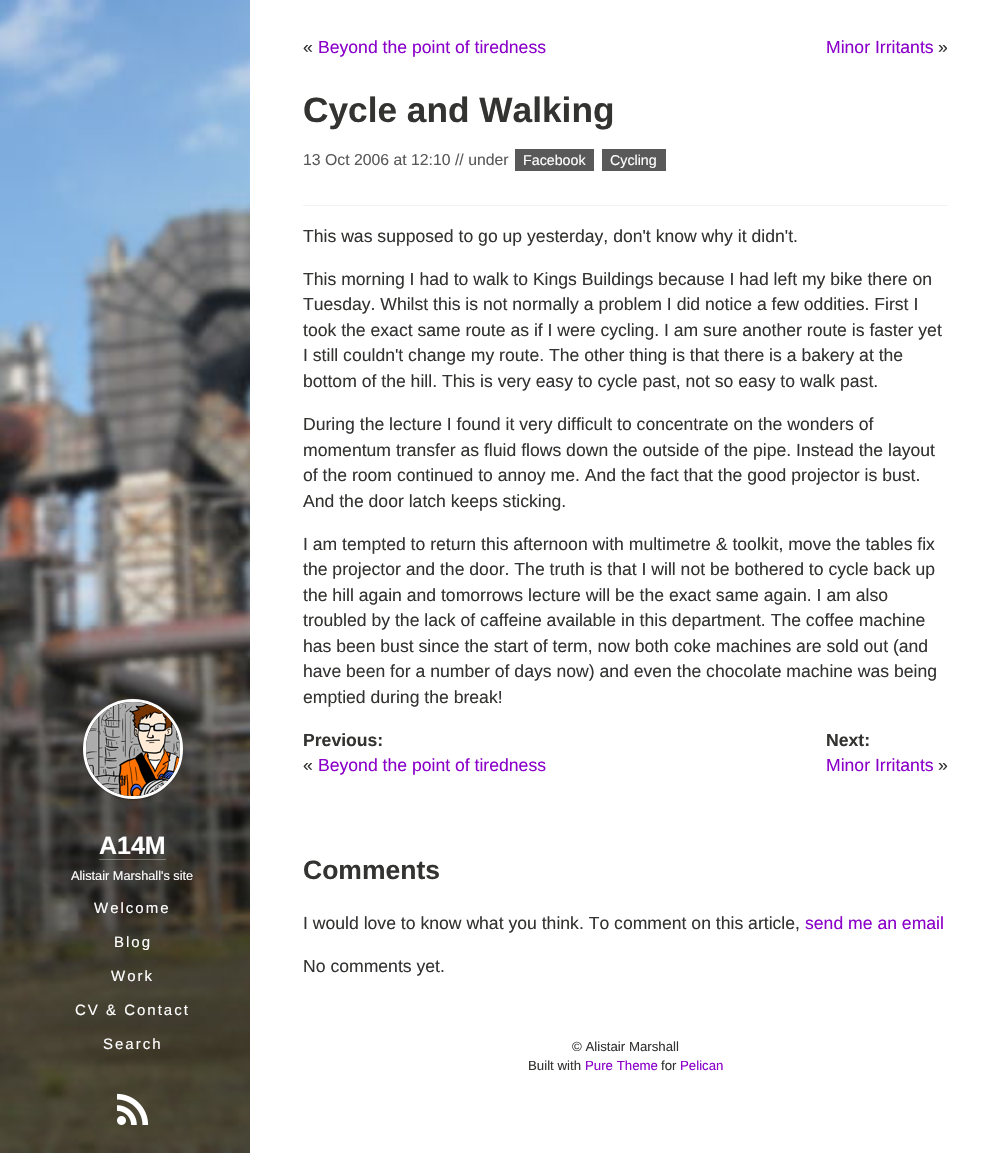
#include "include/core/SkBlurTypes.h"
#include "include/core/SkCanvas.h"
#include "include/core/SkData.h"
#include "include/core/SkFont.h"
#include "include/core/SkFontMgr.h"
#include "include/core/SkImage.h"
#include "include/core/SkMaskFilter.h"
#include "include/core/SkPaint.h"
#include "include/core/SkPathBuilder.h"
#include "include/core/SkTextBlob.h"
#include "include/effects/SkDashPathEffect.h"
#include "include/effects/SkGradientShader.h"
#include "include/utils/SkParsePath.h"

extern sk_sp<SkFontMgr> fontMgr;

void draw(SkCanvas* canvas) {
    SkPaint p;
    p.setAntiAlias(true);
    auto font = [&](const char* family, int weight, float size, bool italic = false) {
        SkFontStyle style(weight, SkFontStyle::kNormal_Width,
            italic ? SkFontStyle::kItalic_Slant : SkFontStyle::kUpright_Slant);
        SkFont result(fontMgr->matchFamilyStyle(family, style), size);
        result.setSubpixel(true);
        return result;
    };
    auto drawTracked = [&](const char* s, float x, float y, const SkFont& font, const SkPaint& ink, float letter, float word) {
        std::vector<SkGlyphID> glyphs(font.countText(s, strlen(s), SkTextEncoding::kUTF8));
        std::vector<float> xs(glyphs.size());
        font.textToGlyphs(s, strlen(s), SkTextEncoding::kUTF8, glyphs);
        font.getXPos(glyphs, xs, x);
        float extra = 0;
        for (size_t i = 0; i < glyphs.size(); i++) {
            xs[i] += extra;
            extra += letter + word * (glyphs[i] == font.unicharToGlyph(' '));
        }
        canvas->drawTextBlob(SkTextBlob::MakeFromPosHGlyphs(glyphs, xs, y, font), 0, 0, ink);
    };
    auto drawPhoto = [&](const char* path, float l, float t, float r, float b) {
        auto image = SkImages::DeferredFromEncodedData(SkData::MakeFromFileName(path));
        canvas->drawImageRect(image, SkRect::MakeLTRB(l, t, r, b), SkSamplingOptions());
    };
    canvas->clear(0xFFFFFFFF);
    drawPhoto("media/1.png", 0, 0, 250, 1153);
    p.setColor(0x4D000000);
    p.setMaskFilter(SkMaskFilter::MakeBlur(kNormal_SkBlurStyle, 0.5f));
    canvas->drawRoundRect(SkRect::MakeLTRB(83, 700, 183, 800), 50, 50, p);
    p.setMaskFilter(nullptr);
    p.setStyle(SkPaint::kStroke_Style);
    p.setStrokeWidth(3);
    p.setColor(0xFFFFFFFF);
    canvas->drawCircle(133, 749, 48.5f, p);
    drawPhoto("media/2.png", 86, 702, 180, 796);
    auto font1 = font("Liberation Sans", 700, 25);
    p.setStyle(SkPaint::kFill_Style);
    canvas->drawString("A14M", 99, 854, font1, p);
    p.setColor(0x4DFFFFFF);
    canvas->drawRect(SkRect::MakeLTRB(99, 859, 166, 860), p);
    auto font2 = font("Liberation Sans", 400, 12.75f);
    p.setColor(0xFFFFFFFF);
    canvas->drawString("Alistair Marshall's site", 71, 880, font2, p);
    auto font3 = font("Liberation Sans", 400, 15);
    {
        const struct { const char* s; float x, y; } items[] = {
            {"Welcome", 94, 913},
            {"Blog", 114, 947},
            {"Work", 111, 981},
            {"CV & Contact", 75, 1015},
            {"Search", 103, 1049},
        };
        for (auto [s, x, y] : items) {
            drawTracked(s, x, y, font3, p, 2, 0);
        }
    }
    drawPhoto("media/3.png", 117, 1093, 149, 1125);
    auto font4 = font("Liberation Sans", 400, 17.6f);
    p.setColor(0xFF333332);
    canvas->drawString("«", 303, 53, font4, p);
    p.setColor(0xFF8A00C9);
    canvas->drawString("Beyond the point of tiredness", 318, 53, font4, p);
    canvas->drawString("Minor Irritants", 826, 53, font4, p);
    p.setColor(0xFF333332);
    canvas->drawString("»", 938, 53, font4, p);
    p.setColor(0xFFF2F2F0);
    canvas->drawRect(SkRect::MakeLTRB(303, 205, 948, 206), p);
    auto font5 = font("Liberation Sans", 700, 35.25f);
    p.setColor(0xFF333332);
    canvas->drawString("Cycle and Walking", 303, 122, font5, p);
    auto font6 = font("Liberation Sans", 400, 15.8f);
    p.setColor(0xFF595959);
    canvas->drawString("13 Oct 2006 at 12:10 // under", 303, 165, font6, p);
    canvas->drawRect(SkRect::MakeLTRB(515, 149, 594, 171), p);
    auto font7 = font("Liberation Sans", 400, 14.25f);
    p.setColor(0xFFFFFFFF);
    canvas->drawString("Facebook", 523, 165, font7, p);
    p.setColor(0xFF595959);
    canvas->drawRect(SkRect::MakeLTRB(602, 149, 666, 171), p);
    p.setColor(0xFFFFFFFF);
    canvas->drawString("Cycling", 610, 165, font7, p);
    p.setColor(0xFF333332);
    {
        const struct { const char* s; float x, y; } items[] = {
            {"This was supposed to go up yesterday, don't know why it didn't.", 303, 242},
            {"This morning I had to walk to Kings Buildings because I had left my bike there on", 303, 285},
            {"Tuesday. Whilst this is not normally a problem I did notice a few oddities. First I", 303, 310},
            {"took the exact same route as if I were cycling. I am sure another route is faster yet", 303, 336},
            {"I still couldn't change my route. The other thing is that there is a bakery at the", 303, 361},
            {"bottom of the hill. This is very easy to cycle past, not so easy to walk past.", 303, 387},
            {"During the lecture I found it very difficult to concentrate on the wonders of", 303, 430},
            {"momentum transfer as fluid flows down the outside of the pipe. Instead the layout", 303, 456},
            {"of the room continued to annoy me. And the fact that the good projector is bust.", 303, 481},
            {"And the door latch keeps sticking.", 303, 507},
            {"I am tempted to return this afternoon with multimetre & toolkit, move the tables fix", 303, 550},
            {"the projector and the door. The truth is that I will not be bothered to cycle back up", 303, 575},
            {"the hill again and tomorrows lecture will be the exact same again. I am also", 303, 601},
            {"troubled by the lack of caffeine available in this department. The coffee machine", 303, 626},
            {"has been bust since the start of term, now both coke machines are sold out (and", 303, 652},
            {"have been for a number of days now) and even the chocolate machine was being", 303, 677},
            {"emptied during the break!", 303, 703},
        };
        for (auto [s, x, y] : items) {
            canvas->drawString(s, x, y, font4, p);
        }
    }
    auto font8 = font("Liberation Sans", 700, 17.6f);
    canvas->drawString("Previous:", 303, 746, font8, p);
    canvas->drawString("«", 303, 771, font4, p);
    p.setColor(0xFF8A00C9);
    canvas->drawString("Beyond the point of tiredness", 318, 771, font4, p);
    p.setColor(0xFF333332);
    canvas->drawString("Next:", 826, 746, font8, p);
    p.setColor(0xFF8A00C9);
    canvas->drawString("Minor Irritants", 826, 771, font4, p);
    p.setColor(0xFF333332);
    canvas->drawString("»", 938, 771, font4, p);
    auto font9 = font("Liberation Sans", 700, 26.5f);
    canvas->drawString("Comments", 303, 879, font9, p);
    canvas->drawString("I would love to know what you think. To comment on this article,", 303, 929, font4, p);
    p.setColor(0xFF8A00C9);
    canvas->drawString("send me an email", 805, 929, font4, p);
    p.setColor(0xFF333332);
    canvas->drawString("No comments yet.", 303, 972, font4, p);
    auto font10 = font("Liberation Sans", 400, 13.25f);
    canvas->drawString("© Alistair Marshall", 572, 1051, font10, p);
    canvas->drawString("Built with", 528, 1070, font10, p);
    p.setColor(0xFF8A00C9);
    canvas->drawString("Pure Theme", 585, 1070, font10, p);
    p.setColor(0xFF333332);
    canvas->drawString("for", 661, 1070, font10, p);
    p.setColor(0xFF8A00C9);
    canvas->drawString("Pelican", 680, 1070, font10, p);
}
